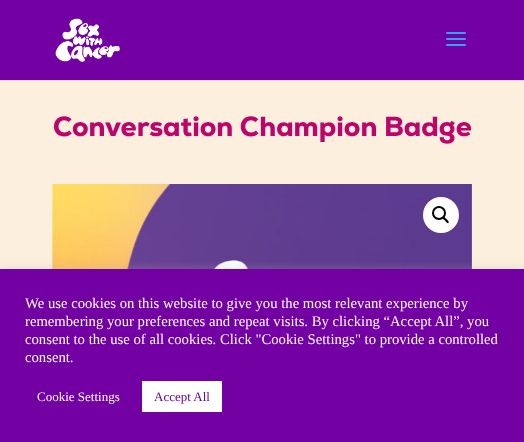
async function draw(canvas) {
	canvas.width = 524;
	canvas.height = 442;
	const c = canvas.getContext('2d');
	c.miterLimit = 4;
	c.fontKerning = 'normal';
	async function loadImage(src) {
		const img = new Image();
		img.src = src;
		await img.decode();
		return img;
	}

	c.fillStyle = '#fcefdd';
	c.fillRect(0, 0, 524, 442);
	c.fillStyle = '#e3d7c7';
	c.fillRect(0, 80, 524, 1);
	c.fillStyle = '#7200a3';
	c.fillRect(0, 0, 524, 80);
	c.drawImage(await loadImage('img1.png'), 55, 18, 65, 44);
	c.drawImage(await loadImage('img2.png'), 446, 32, 20, 14);
	c.font = '900 27.5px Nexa';
	c.fillStyle = '#bc046c';
	c.fillText('Conversation Champion Badge', 53, 136);
	c.drawImage(await loadImage('img3.png'), 52, 184, 420, 85);
	c.fillStyle = '#fff';
	c.beginPath();
	c.arc(441, 215, 18, 0, 2 * Math.PI);
	c.fill();
	c.beginPath();
	c.arc(439, 213, 6, 0, 2 * Math.PI);
	c.strokeStyle = '#000';
	c.lineWidth = 2;
	c.stroke();
	c.fillStyle = '#000';
	c.beginPath();
	c.moveTo(443, 217);
	c.bezierCurveTo(444, 216, 445.5, 218.5, 446.5, 219);
	c.bezierCurveTo(447, 220, 449.5, 221.5, 448.5, 223);
	c.bezierCurveTo(447, 224, 445.5, 221, 445, 220.5);
	c.bezierCurveTo(444.5, 220, 441.5, 218.5, 443, 217);
	c.closePath();
	c.fill();
	c.fillStyle = '#acabab4d';
	c.filter = 'blur(5px)';
	c.beginPath();
	c.rect(0, 268, 524, 173);
	c.fill();
	c.filter = 'none';
	c.fillStyle = '#7200a3';
	c.fillRect(0, 269, 524, 173);
	c.font = '14.7px Liberation Serif';
	c.fillStyle = '#fff';
	for (const [text, x, y] of [
		['We use cookies on this website to give you the most relevant experience by', 25, 308],
		['remembering your preferences and repeat visits. By clicking “Accept All”, you', 25, 326],
		['consent to the use of all cookies. Click "Cookie Settings" to provide a controlled', 25, 344],
		['consent.', 25, 362],
	]) {
		c.fillText(text, x, y);
	}
	c.font = '13px Liberation Serif';
	c.fillText('Cookie Settings', 37, 401);
	c.fillRect(142, 381, 80, 31);
	c.fillStyle = '#7200a3';
	c.fillText('Accept All', 154, 401);
}

draw(document.querySelector('canvas'));
